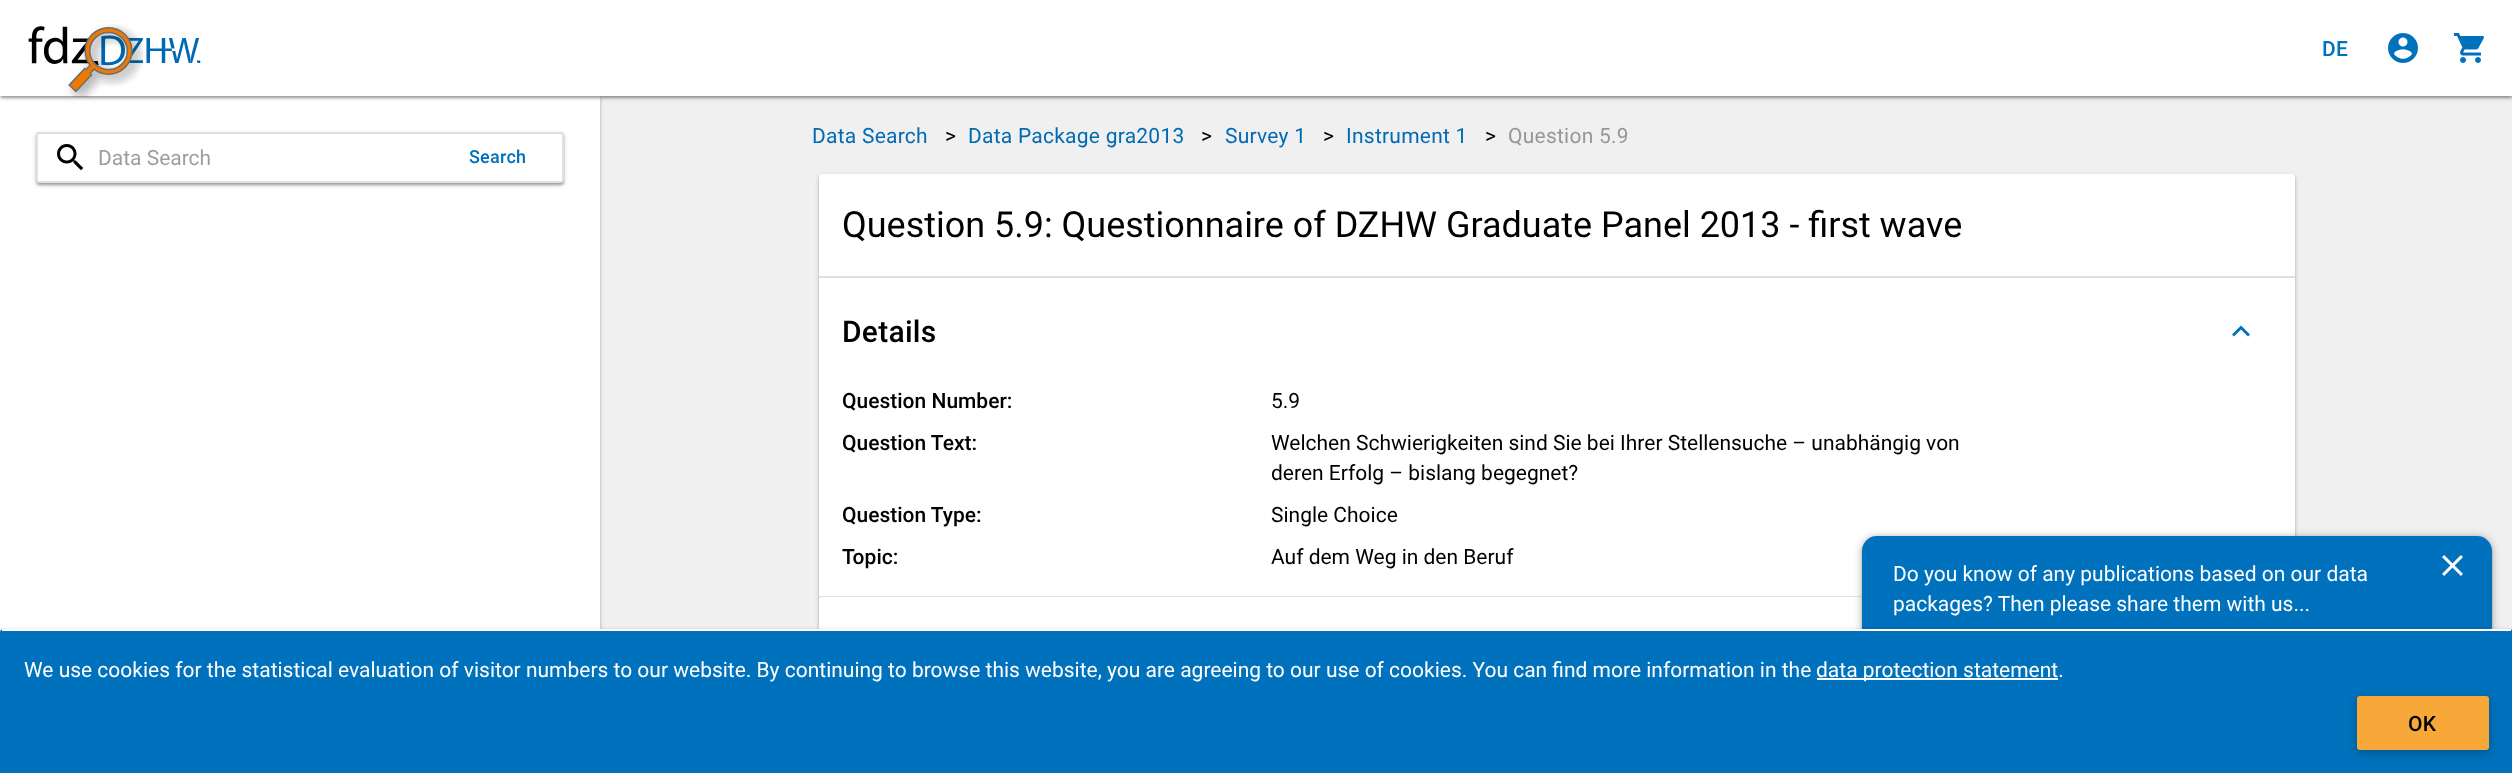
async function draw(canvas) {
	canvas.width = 2512;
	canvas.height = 773;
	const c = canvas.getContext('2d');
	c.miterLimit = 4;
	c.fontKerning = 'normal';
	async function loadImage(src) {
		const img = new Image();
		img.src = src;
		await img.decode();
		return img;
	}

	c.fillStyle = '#f0f0f0';
	c.fillRect(0, 0, 2512, 773);
	c.fillStyle = '#00000024';
	c.filter = 'blur(1px)';
	c.beginPath();
	c.rect(0, 98, 600, 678);
	c.fill();
	c.filter = 'none';
	c.fillStyle = '#00000033';
	c.filter = 'blur(2px)';
	c.beginPath();
	c.rect(0, 98, 600, 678);
	c.fill();
	c.filter = 'none';
	c.fillStyle = '#fff';
	c.fillRect(0, 96, 600, 536);
	c.fillStyle = '#0000001f';
	c.filter = 'blur(1px)';
	c.beginPath();
	c.rect(2, 5, 2509, 93);
	c.fill();
	c.filter = 'none';
	c.fillStyle = '#00000024';
	c.filter = 'blur(1px)';
	c.beginPath();
	c.rect(0, 2, 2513, 96);
	c.fill();
	c.filter = 'none';
	c.fillStyle = '#00000033';
	c.filter = 'blur(2px)';
	c.beginPath();
	c.rect(0, 2, 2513, 96);
	c.fill();
	c.filter = 'none';
	c.fillStyle = '#fff';
	c.fillRect(0, 0, 2512, 96);
	c.drawImage(await loadImage('img1.png'), 28, 24, 173, 74);
	c.letterSpacing = '0.25px';
	c.font = '500 21px Roboto';
	c.fillStyle = '#0071bc';
	c.fillText('DE', 2322, 56);
	c.drawImage(await loadImage('img2.png'), 2388, 33, 30, 30);
	c.drawImage(await loadImage('img3.png'), 2453, 33, 31, 30);
	c.save();
	c.beginPath();
	c.moveTo(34, 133);
	c.lineTo(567, 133);
	c.lineTo(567, 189);
	c.lineTo(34, 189);
	c.closePath();
	c.moveTo(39, 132);
	c.lineTo(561, 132);
	c.bezierCurveTo(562.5, 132, 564, 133.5, 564, 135);
	c.lineTo(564, 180);
	c.bezierCurveTo(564, 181.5, 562.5, 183, 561, 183);
	c.lineTo(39, 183);
	c.bezierCurveTo(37.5, 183, 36, 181.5, 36, 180);
	c.lineTo(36, 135);
	c.bezierCurveTo(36, 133.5, 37.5, 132, 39, 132);
	c.closePath();
	c.clip('evenodd');
	c.fillStyle = '#0000001f';
	c.filter = 'blur(1px)';
	c.beginPath();
	c.roundRect(38, 137, 525, 48, 1.5);
	c.fill();
	c.filter = 'none';
	c.restore();
	c.save();
	c.beginPath();
	c.moveTo(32, 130);
	c.lineTo(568, 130);
	c.lineTo(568, 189);
	c.lineTo(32, 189);
	c.closePath();
	c.moveTo(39, 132);
	c.lineTo(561, 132);
	c.bezierCurveTo(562.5, 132, 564, 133.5, 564, 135);
	c.lineTo(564, 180);
	c.bezierCurveTo(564, 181.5, 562.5, 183, 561, 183);
	c.lineTo(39, 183);
	c.bezierCurveTo(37.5, 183, 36, 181.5, 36, 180);
	c.lineTo(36, 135);
	c.bezierCurveTo(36, 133.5, 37.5, 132, 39, 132);
	c.closePath();
	c.clip('evenodd');
	c.fillStyle = '#00000024';
	c.filter = 'blur(1px)';
	c.beginPath();
	c.roundRect(36, 134, 528, 51, 3);
	c.fill();
	c.filter = 'none';
	c.restore();
	c.save();
	c.beginPath();
	c.moveTo(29, 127);
	c.lineTo(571, 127);
	c.lineTo(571, 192);
	c.lineTo(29, 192);
	c.closePath();
	c.moveTo(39, 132);
	c.lineTo(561, 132);
	c.bezierCurveTo(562.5, 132, 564, 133.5, 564, 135);
	c.lineTo(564, 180);
	c.bezierCurveTo(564, 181.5, 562.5, 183, 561, 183);
	c.lineTo(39, 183);
	c.bezierCurveTo(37.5, 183, 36, 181.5, 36, 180);
	c.lineTo(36, 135);
	c.bezierCurveTo(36, 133.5, 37.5, 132, 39, 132);
	c.closePath();
	c.clip('evenodd');
	c.fillStyle = '#00000033';
	c.filter = 'blur(2px)';
	c.beginPath();
	c.roundRect(36, 134, 528, 51, 3);
	c.fill();
	c.filter = 'none';
	c.restore();
	c.beginPath();
	c.roundRect(37, 133, 526, 49, 2);
	c.strokeStyle = '#0000001f';
	c.lineWidth = 2;
	c.stroke();
	c.drawImage(await loadImage('img4.png'), 57, 144, 27, 27);
	c.letterSpacing = '0px';
	c.font = '21px Roboto';
	c.fillStyle = '#9e9e9e';
	c.fillText('Data Search', 98, 165);
	c.letterSpacing = '0.25px';
	c.font = '500 18px Roboto';
	c.fillStyle = '#0071bc';
	c.fillText('Search', 469, 163);
	c.font = '21px Roboto';
	c.fillStyle = '#006ab2';
	c.fillText('Data Search', 812, 143);
	c.fillStyle = '#000';
	c.fillText('>', 945, 143);
	c.fillStyle = '#006ab2';
	c.fillText('Data Package gra2013', 968, 143);
	c.fillStyle = '#000';
	c.fillText('>', 1201, 143);
	c.fillStyle = '#006ab2';
	c.fillText('Survey 1', 1225, 143);
	c.fillStyle = '#000';
	c.fillText('>', 1323, 143);
	c.fillStyle = '#006ab2';
	c.fillText('Instrument 1', 1346, 143);
	c.fillStyle = '#000';
	c.fillText('>', 1485, 143);
	c.fillStyle = '#979797';
	c.fillText('Question 5.9', 1508, 143);
	c.fillStyle = '#00000024';
	c.filter = 'blur(1px)';
	c.beginPath();
	c.roundRect(819, 176, 1476, 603, 3);
	c.fill();
	c.filter = 'none';
	c.fillStyle = '#00000033';
	c.filter = 'blur(2px)';
	c.beginPath();
	c.roundRect(819, 176, 1476, 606, 3);
	c.fill();
	c.filter = 'none';
	c.fillStyle = '#fff';
	c.beginPath();
	c.moveTo(822, 174);
	c.lineTo(2292, 174);
	c.bezierCurveTo(2293.5, 174, 2295, 175.5, 2295, 177);
	c.lineTo(2295, 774);
	c.lineTo(819, 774);
	c.lineTo(819, 177);
	c.bezierCurveTo(819, 175.5, 820.5, 174, 822, 174);
	c.closePath();
	c.fill();
	c.letterSpacing = '0px';
	c.font = '36px Roboto';
	c.fillStyle = '#000';
	c.fillText('Question 5.9: Questionnaire of DZHW Graduate Panel 2013 - first wave', 842, 237);
	c.fillStyle = '#e0e0e0';
	c.fillRect(819, 276, 1476, 2);
	c.letterSpacing = '0.25px';
	c.font = '500 30px Roboto';
	c.fillStyle = '#000';
	c.fillText('Details', 842, 342);
	c.fillStyle = '#0071bc';
	c.beginPath();
	c.moveTo(2234, 336.5);
	c.lineTo(2232, 334.5);
	c.lineTo(2241, 325.5);
	c.lineTo(2250, 334.5);
	c.lineTo(2248, 336.5);
	c.lineTo(2241, 329.5);
	c.closePath();
	c.fill();
	c.letterSpacing = '0px';
	c.font = '500 21px Roboto';
	c.fillStyle = '#000';
	c.fillText('Question Number:', 842, 408);
	c.font = '21px Roboto';
	c.fillText('5.9', 1271, 408);
	c.font = '500 21px Roboto';
	c.fillText('Question Text:', 842, 450);
	c.font = '21px Roboto';
	c.fillText('Welchen Schwierigkeiten sind Sie bei Ihrer Stellensuche – unabhängig von', 1271, 450);
	c.fillText('deren Erfolg – bislang begegnet?', 1271, 480);
	c.font = '500 21px Roboto';
	c.fillText('Question Type:', 842, 522);
	c.font = '21px Roboto';
	c.fillText('Single Choice', 1271, 522);
	c.font = '500 21px Roboto';
	c.fillText('Topic:', 842, 564);
	c.font = '21px Roboto';
	c.fillText('Auf dem Weg in den Beruf', 1271, 564);
	c.fillStyle = '#e0e0e0';
	c.fillRect(819, 596, 1043, 2);
	c.fillStyle = '#fff';
	c.beginPath();
	c.moveTo(822, 597);
	c.lineTo(2292, 597);
	c.bezierCurveTo(2293.5, 597, 2295, 598.5, 2295, 600);
	c.lineTo(2295, 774);
	c.lineTo(819, 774);
	c.lineTo(819, 600);
	c.bezierCurveTo(819, 598.5, 820.5, 597, 822, 597);
	c.closePath();
	c.fill();
	c.fillStyle = '#00000033';
	c.filter = 'blur(1px)';
	c.beginPath();
	c.roundRect(1862, 537, 630, 107, 15);
	c.fill();
	c.filter = 'none';
	c.fillStyle = '#0000004d';
	c.filter = 'blur(4px)';
	c.beginPath();
	c.roundRect(1862, 537, 630, 107, 15);
	c.fill();
	c.filter = 'none';
	c.fillStyle = '#0071bc';
	c.beginPath();
	c.roundRect(1862, 536, 630, 106, 15);
	c.fill();
	c.fillStyle = '#fff';
	c.fillText('Do you know of any publications based on our data', 1893, 581);
	c.fillText('packages? Then please share them with us...', 1893, 611);
	c.drawImage(await loadImage('img5.png'), 2442, 555, 21, 21);
	c.fillStyle = '#00000033';
	c.filter = 'blur(2px)';
	c.beginPath();
	c.roundRect(0, 630, 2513, 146, 3);
	c.fill();
	c.filter = 'none';
	c.fillStyle = '#0071bc';
	c.beginPath();
	c.moveTo(3, 629);
	c.lineTo(2510, 629);
	c.bezierCurveTo(2511.5, 629, 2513, 630.5, 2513, 632);
	c.lineTo(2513, 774);
	c.lineTo(0, 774);
	c.lineTo(0, 632);
	c.bezierCurveTo(0, 630.5, 1.5, 629, 3, 629);
	c.closePath();
	c.fill();
	c.fillStyle = '#fff';
	c.fillRect(2, 629, 2509, 2);
	c.fillText('We use cookies for the statistical evaluation of visitor numbers to our website. By continuing to browse this website, you are agreeing to our use of cookies. You can find more information in the', 24, 677);
	c.fillRect(1817, 678, 241, 2);
	c.fillText('data protection statement.', 1816, 677);
	c.fillStyle = '#00000042';
	c.filter = 'blur(4px)';
	c.beginPath();
	c.roundRect(2357, 699, 132, 54, 3);
	c.fill();
	c.filter = 'none';
	c.fillStyle = '#f7a839';
	c.beginPath();
	c.roundRect(2357, 696, 132, 54, 3);
	c.fill();
	c.letterSpacing = '0.25px';
	c.font = '500 21px Roboto';
	c.fillStyle = '#000';
	c.fillText('OK', 2408, 731);
}

draw(document.querySelector('canvas'));
